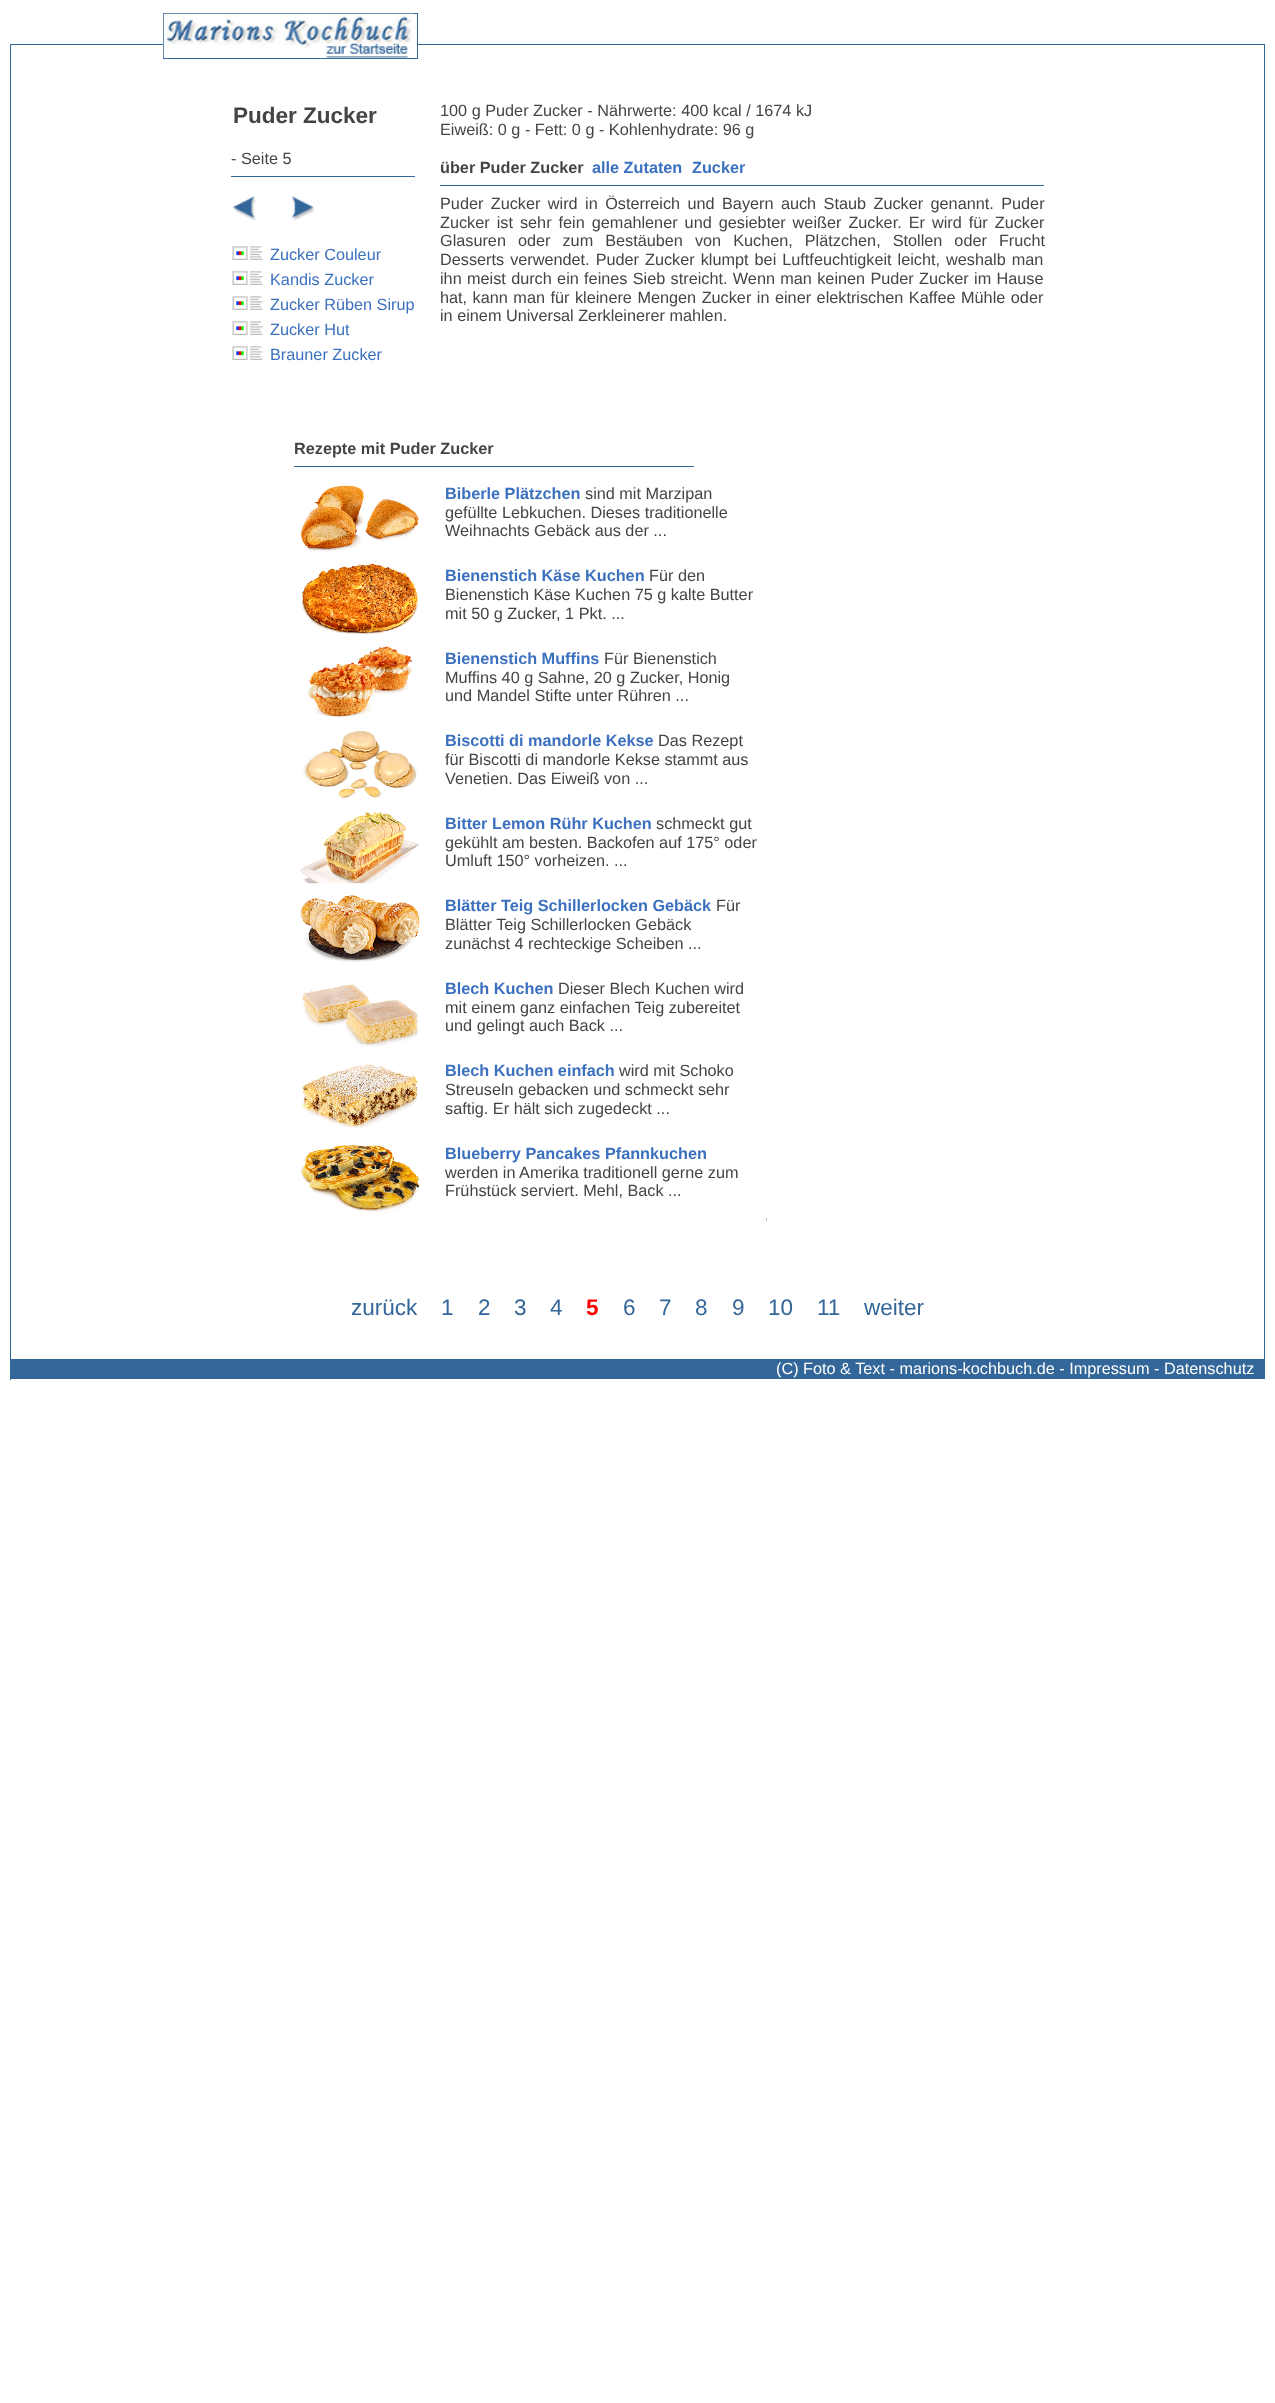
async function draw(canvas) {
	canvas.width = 1275;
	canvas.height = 2403;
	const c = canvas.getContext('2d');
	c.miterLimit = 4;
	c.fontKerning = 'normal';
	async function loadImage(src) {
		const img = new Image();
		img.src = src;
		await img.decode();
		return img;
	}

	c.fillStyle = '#fff';
	c.fillRect(0, 0, 1275, 2403);
	c.fillStyle = '#369';
	c.fillRect(10, 44, 1255, 1);
	c.fillStyle = '#fff';
	c.fillRect(164, 44, 253, 1);
	c.strokeStyle = '#369';
	c.strokeRect(163.5, 13.5, 254, 45);
	c.drawImage(await loadImage('img1.png'), 163, 13, 251, 45);
	for (const [x, y, w, h, color] of [
		[1264, 44, 1, 1336, '#369'],
		[1264, 1379, 1, 1, '#fff'],
		[10, 44, 1, 1336, '#369'],
	]) {
		c.fillStyle = color;
		c.fillRect(x, y, w, h);
	}
	c.font = 'bold 22.5px Liberation Sans';
	c.fillStyle = '#444';
	c.fillText('Puder Zucker', 233, 123);
	c.font = '16.25px Liberation Sans';
	c.fillText('- Seite 5', 231, 164);
	c.fillStyle = '#369';
	c.fillRect(231, 176, 184, 1);
	c.drawImage(await loadImage('img2.png'), 232, 196, 24, 24);
	c.drawImage(await loadImage('img3.png'), 291, 196, 24, 24);
	c.drawImage(await loadImage('img4.png'), 232, 246, 31, 14);
	c.fillStyle = '#3b70bf';
	c.fillText('Zucker Couleur', 270, 260);
	c.drawImage(await loadImage('img4.png'), 232, 271, 31, 14);
	c.fillText('Kandis Zucker', 270, 285);
	c.drawImage(await loadImage('img5.png'), 232, 296, 31, 14);
	c.fillText('Zucker Rüben Sirup', 270, 310);
	c.drawImage(await loadImage('img4.png'), 232, 321, 31, 14);
	c.fillText('Zucker Hut', 270, 335);
	c.drawImage(await loadImage('img4.png'), 232, 346, 31, 14);
	c.fillText('Brauner Zucker', 270, 360);
	c.fillStyle = '#444';
	c.fillText('100 g Puder Zucker - Nährwerte: 400 kcal / 1674 kJ', 440, 116);
	c.fillText('Eiweiß: 0 g - Fett: 0 g - Kohlenhydrate: 96 g', 440, 135);
	c.font = 'bold 16.25px Liberation Sans';
	c.fillText('über Puder Zucker', 440, 173);
	c.fillStyle = '#3b70bf';
	c.fillText('alle Zutaten', 592, 173);
	c.fillText('Zucker', 692, 173);
	c.fillStyle = '#369';
	c.fillRect(440, 185, 604, 1);
	c.wordSpacing = '2.9px';
	c.font = '16.25px Liberation Sans';
	c.fillStyle = '#444';
	c.fillText('Puder Zucker wird in Österreich und Bayern auch Staub Zucker genannt. Puder', 440, 209);
	c.wordSpacing = '2.5px';
	c.fillText('Zucker ist sehr fein gemahlener und gesiebter weißer Zucker. Er wird für Zucker', 440, 228);
	c.wordSpacing = '7.5px';
	c.fillText('Glasuren oder zum Bestäuben von Kuchen, Plätzchen, Stollen oder Frucht', 440, 246);
	c.wordSpacing = '1.5px';
	c.fillText('Desserts verwendet. Puder Zucker klumpt bei Luftfeuchtigkeit leicht, weshalb man', 440, 265);
	c.wordSpacing = '0.8px';
	c.fillText('ihn meist durch ein feines Sieb streicht. Wenn man keinen Puder Zucker im Hause', 440, 284);
	c.wordSpacing = '1px';
	c.fillText('hat, kann man für kleinere Mengen Zucker in einer elektrischen Kaffee Mühle oder', 440, 303);
	c.wordSpacing = '0px';
	c.fillText('in einem Universal Zerkleinerer mahlen.', 440, 321);
	c.font = 'bold 16.25px Liberation Sans';
	c.fillText('Rezepte mit Puder Zucker', 294, 454);
	c.fillStyle = '#369';
	c.fillRect(294, 466, 400, 1);
	c.drawImage(await loadImage('img6.png'), 301, 485, 118, 67);
	c.fillStyle = '#3b70bf';
	c.fillText('Biberle Plätzchen', 445, 499);
	c.font = '16.25px Liberation Sans';
	c.fillStyle = '#444';
	for (const [text, x, y] of [
		['sind mit Marzipan', 585, 499],
		['gefüllte Lebkuchen. Dieses traditionelle', 445, 518],
		['Weihnachts Gebäck aus der ...', 445, 536],
	]) {
		c.fillText(text, x, y);
	}
	c.drawImage(await loadImage('img7.png'), 301, 563, 117, 72);
	c.font = 'bold 16.25px Liberation Sans';
	c.fillStyle = '#3b70bf';
	c.fillText('Bienenstich Käse Kuchen', 445, 581);
	c.font = '16.25px Liberation Sans';
	c.fillStyle = '#444';
	for (const [text, x, y] of [
		['Für den', 649, 581],
		['Bienenstich Käse Kuchen 75 g kalte Butter', 445, 600],
		['mit 50 g Zucker, 1 Pkt. ...', 445, 619],
	]) {
		c.fillText(text, x, y);
	}
	c.drawImage(await loadImage('img8.png'), 308, 646, 105, 71);
	c.font = 'bold 16.25px Liberation Sans';
	c.fillStyle = '#3b70bf';
	c.fillText('Bienenstich Muffins', 445, 664);
	c.font = '16.25px Liberation Sans';
	c.fillStyle = '#444';
	for (const [text, x, y] of [
		['Für Bienenstich', 604, 664],
		['Muffins 40 g Sahne, 20 g Zucker, Honig', 445, 683],
		['und Mandel Stifte unter Rühren ...', 445, 701],
	]) {
		c.fillText(text, x, y);
	}
	c.drawImage(await loadImage('img9.png'), 303, 731, 114, 67);
	c.font = 'bold 16.25px Liberation Sans';
	c.fillStyle = '#3b70bf';
	c.fillText('Biscotti di mandorle Kekse', 445, 746);
	c.font = '16.25px Liberation Sans';
	c.fillStyle = '#444';
	for (const [text, x, y] of [
		['Das Rezept', 658, 746],
		['für Biscotti di mandorle Kekse stammt aus', 445, 765],
		['Venetien. Das Eiweiß von ...', 445, 784],
	]) {
		c.fillText(text, x, y);
	}
	c.drawImage(await loadImage('img10.png'), 300, 812, 120, 72);
	c.font = 'bold 16.25px Liberation Sans';
	c.fillStyle = '#3b70bf';
	c.fillText('Bitter Lemon Rühr Kuchen', 445, 829);
	c.font = '16.25px Liberation Sans';
	c.fillStyle = '#444';
	for (const [text, x, y] of [
		['schmeckt gut', 656, 829],
		['gekühlt am besten. Backofen auf 175° oder', 445, 848],
		['Umluft 150° vorheizen. ...', 445, 866],
	]) {
		c.fillText(text, x, y);
	}
	c.drawImage(await loadImage('img11.png'), 300, 895, 120, 68);
	c.font = 'bold 16.25px Liberation Sans';
	c.fillStyle = '#3b70bf';
	c.fillText('Blätter Teig Schillerlocken Gebäck', 445, 911);
	c.font = '16.25px Liberation Sans';
	c.fillStyle = '#444';
	for (const [text, x, y] of [
		['Für', 716, 911],
		['Blätter Teig Schillerlocken Gebäck', 445, 930],
		['zunächst 4 rechteckige Scheiben ...', 445, 949],
	]) {
		c.fillText(text, x, y);
	}
	c.drawImage(await loadImage('img12.png'), 302, 984, 117, 63);
	c.font = 'bold 16.25px Liberation Sans';
	c.fillStyle = '#3b70bf';
	c.fillText('Blech Kuchen', 445, 994);
	c.font = '16.25px Liberation Sans';
	c.fillStyle = '#444';
	for (const [text, x, y] of [
		['Dieser Blech Kuchen wird', 558, 994],
		['mit einem ganz einfachen Teig zubereitet', 445, 1013],
		['und gelingt auch Back ...', 445, 1031],
	]) {
		c.fillText(text, x, y);
	}
	c.drawImage(await loadImage('img13.png'), 302, 1063, 116, 66);
	c.font = 'bold 16.25px Liberation Sans';
	c.fillStyle = '#3b70bf';
	c.fillText('Blech Kuchen einfach', 445, 1076);
	c.font = '16.25px Liberation Sans';
	c.fillStyle = '#444';
	for (const [text, x, y] of [
		['wird mit Schoko', 619, 1076],
		['Streuseln gebacken und schmeckt sehr', 445, 1095],
		['saftig. Er hält sich zugedeckt ...', 445, 1114],
	]) {
		c.fillText(text, x, y);
	}
	c.drawImage(await loadImage('img14.png'), 301, 1144, 119, 69);
	c.font = 'bold 16.25px Liberation Sans';
	c.fillStyle = '#3b70bf';
	c.fillText('Blueberry Pancakes Pfannkuchen', 445, 1159);
	c.font = '16.25px Liberation Sans';
	c.fillStyle = '#444';
	c.fillText('werden in Amerika traditionell gerne zum', 445, 1178);
	c.fillText('Frühstück serviert. Mehl, Back ...', 445, 1196);
	c.fillStyle = '#c1c1c1';
	c.fillRect(766, 1218, 1, 3);
	c.font = '22.5px Liberation Sans';
	c.fillStyle = '#369';
	for (const [text, x, y] of [
		['zurück', 351, 1315],
		['1', 441, 1315],
		['2', 478, 1315],
		['3', 514, 1315],
		['4', 550, 1315],
	]) {
		c.fillText(text, x, y);
	}
	c.font = 'bold 22.5px Liberation Sans';
	c.fillStyle = '#f00';
	c.fillText('5', 586, 1315);
	c.font = '22.5px Liberation Sans';
	c.fillStyle = '#369';
	for (const [text, x, y] of [
		['6', 623, 1315],
		['7', 659, 1315],
		['8', 695, 1315],
		['9', 732, 1315],
		['10', 768, 1315],
		['11', 817, 1315],
		['weiter', 864, 1315],
	]) {
		c.fillText(text, x, y);
	}
	c.fillRect(11, 1359, 1253, 20);
	c.font = '16.25px Liberation Sans';
	c.fillStyle = '#fff';
	c.fillText('(C) Foto & Text - marions-kochbuch.de - Impressum - Datenschutz', 776, 1374);
}

draw(document.querySelector('canvas'));
